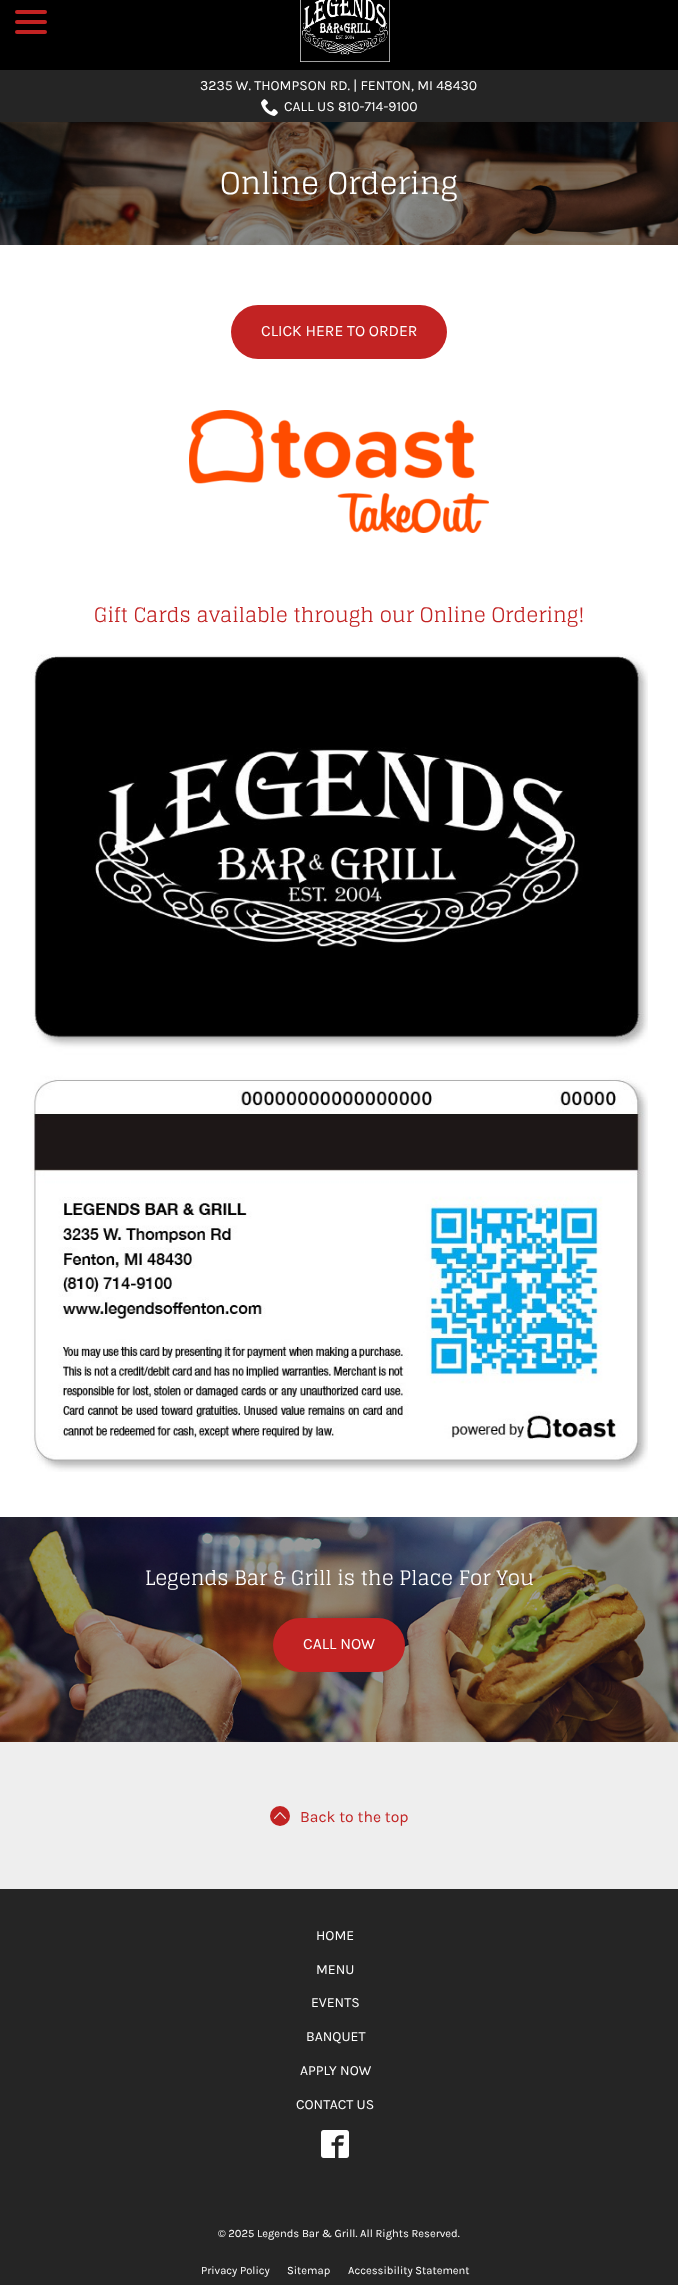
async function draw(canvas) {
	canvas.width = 678;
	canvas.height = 2285;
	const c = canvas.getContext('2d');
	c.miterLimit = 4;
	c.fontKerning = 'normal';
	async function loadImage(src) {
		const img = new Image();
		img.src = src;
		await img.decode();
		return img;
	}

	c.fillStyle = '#fff';
	c.fillRect(0, 0, 678, 2285);
	c.fillStyle = '#000';
	c.fillRect(0, 0, 678, 70);
	c.fillStyle = '#c22323';
	c.beginPath();
	c.roundRect(15, 20, 32, 4, 2);
	c.fill();
	c.beginPath();
	c.roundRect(15, 10, 32, 4, 2);
	c.fill();
	c.beginPath();
	c.roundRect(15, 30, 32, 4, 2);
	c.fill();
	c.drawImage(await loadImage('img1.png'), 300, 0, 90, 62);
	c.fillStyle = '#252525';
	c.fillRect(0, 70, 678, 52);
	c.font = '14px Karla';
	c.fillStyle = '#fff';
	c.fillText('3235 W. THOMPSON RD. | FENTON, MI 48430', 200, 90);
	c.drawImage(await loadImage('img2.png'), 261, 99, 17, 17);
	c.fillText('CALL US 810-714-9100', 284, 111);
	c.drawImage(await loadImage('img3.png'), 0, 122, 678, 123);
	c.font = '30px Glegoo';
	c.fillText('Online Ordering', 220, 194);
	c.fillStyle = '#c22323';
	c.beginPath();
	c.roundRect(231, 305, 216, 54, 27);
	c.fill();
	c.font = '15.75px Karla';
	c.fillStyle = '#fff';
	c.fillText('CLICK HERE TO ORDER', 261, 336);
	c.drawImage(await loadImage('img4.png'), 189, 410, 300, 123);
	c.font = '20px Glegoo';
	c.fillStyle = '#c22323';
	c.fillText('Gift Cards available through our Online Ordering!', 94, 622);
	c.drawImage(await loadImage('img5.png'), 30, 654, 618, 818);
	c.drawImage(await loadImage('img6.png'), 0, 1517, 678, 225);
	c.fillStyle = '#fff';
	c.fillText('Legends Bar & Grill is the Place For You', 145, 1585);
	c.fillStyle = '#c22323';
	c.beginPath();
	c.roundRect(273, 1618, 132, 54, 27);
	c.fill();
	c.font = '15.75px Karla';
	c.fillStyle = '#fff';
	c.fillText('CALL NOW', 303, 1649);
	c.fillStyle = '#eee';
	c.fillRect(0, 1742, 678, 147);
	c.fillStyle = '#c22323';
	c.beginPath();
	c.arc(280, 1816, 10, 0, 2 * Math.PI);
	c.fill();
	c.drawImage(await loadImage('img7.png'), 274, 1812, 12, 7);
	c.fillText('Back to the top', 300, 1822);
	c.fillStyle = '#252525';
	c.fillRect(0, 1889, 678, 396);
	c.font = '14px Karla';
	c.fillStyle = '#fff';
	for (const [text, x, y] of [
		['HOME', 316, 1940],
		['MENU', 316, 1974],
		['EVENTS', 311, 2007],
		['BANQUET', 306, 2041],
		['APPLY NOW', 300, 2075],
		['CONTACT US', 296, 2109],
	]) {
		c.fillText(text, x, y);
	}
	c.drawImage(await loadImage('img8.png'), 321, 2130, 28, 28);
	c.font = '11.2px Karla';
	for (const [text, x, y] of [
		['© 2025 Legends Bar & Grill. All Rights Reserved.', 218, 2237],
		['Privacy Policy', 201, 2274],
		['Sitemap', 287, 2274],
		['Accessibility Statement', 348, 2274],
	]) {
		c.fillText(text, x, y);
	}
}

draw(document.querySelector('canvas'));
